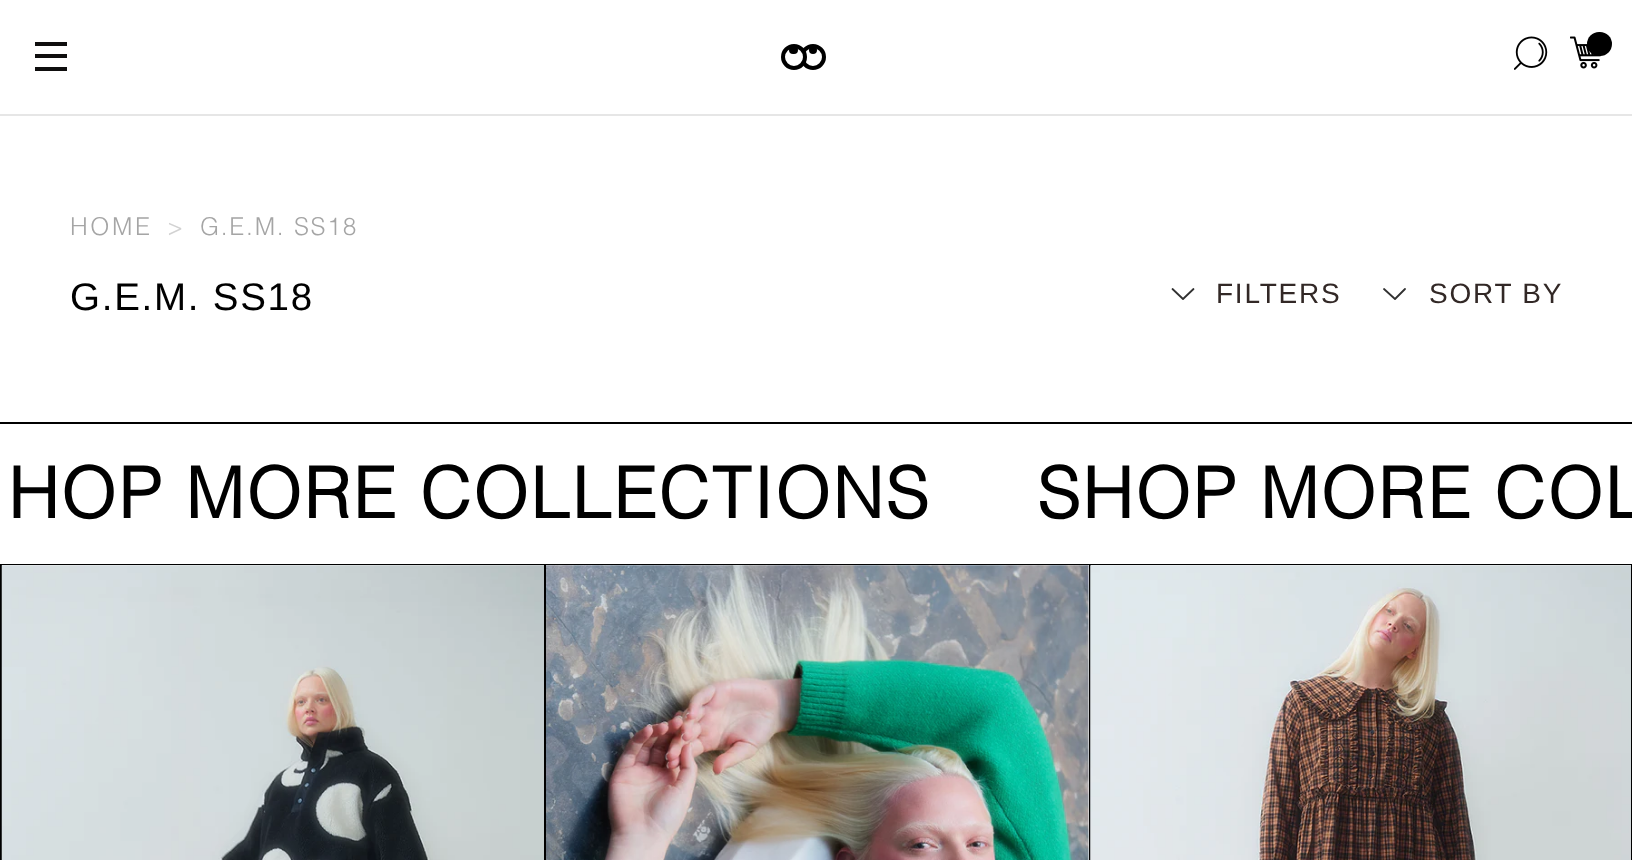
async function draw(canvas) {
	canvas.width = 1632;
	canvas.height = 860;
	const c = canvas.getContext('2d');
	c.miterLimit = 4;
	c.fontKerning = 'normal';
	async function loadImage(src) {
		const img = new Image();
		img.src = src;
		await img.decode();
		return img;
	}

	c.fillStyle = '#fff';
	c.fillRect(0, 0, 1632, 860);
	for (const [x, y, w, h, color] of [
		[0, 114, 1632, 2, '#e6e6e6'],
		[35, 42, 32, 4, '#0f0e0e'],
		[35, 54, 32, 4, '#0f0e0e'],
		[35, 67, 32, 4, '#0f0e0e'],
	]) {
		c.fillStyle = color;
		c.fillRect(x, y, w, h);
	}
	c.beginPath();
	c.arc(813, 57, 11, 0, 2 * Math.PI);
	c.strokeStyle = '#000';
	c.lineWidth = 4;
	c.stroke();
	c.fillStyle = '#fff';
	c.beginPath();
	c.arc(794, 57, 11, 0, 2 * Math.PI);
	c.fill();
	c.stroke();
	c.fillStyle = '#000';
	c.beginPath();
	c.roundRect(789, 46, 9, 8, 4);
	c.fill();
	c.beginPath();
	c.arc(813, 50, 4, 0, 2 * Math.PI);
	c.fill();
	c.drawImage(await loadImage('img1.png'), 1514, 36, 34, 34);
	c.drawImage(await loadImage('img2.png'), 1570, 36, 32, 33);
	c.beginPath();
	c.roundRect(1587, 32, 25, 24, 12);
	c.fill();
	c.letterSpacing = '2.6px';
	c.font = '300 24.5px Helvetica';
	c.fillStyle = '#a5a5a5';
	c.fillText('HOME', 70, 235);
	c.letterSpacing = '1.75px';
	c.fillStyle = '#d2d2d2';
	c.fillText('>', 167, 235);
	c.fillStyle = '#a5a5a5';
	c.fillText('G.E.M. SS18', 200, 235);
	c.font = '38.5px Liberation Sans';
	c.fillStyle = '#000';
	c.fillText('G.E.M. SS18', 70, 310);
	c.beginPath();
	c.moveTo(1172.5, 289);
	c.lineTo(1183, 299);
	c.lineTo(1193.5, 289);
	c.strokeStyle = '#313131';
	c.lineWidth = 1.8;
	c.lineCap = 'round';
	c.lineJoin = 'round';
	c.stroke();
	c.font = '28px Liberation Sans';
	c.fillStyle = '#322826';
	c.fillText('FILTERS', 1216, 303);
	c.beginPath();
	c.moveTo(1384, 289);
	c.lineTo(1395, 299);
	c.lineTo(1405, 289);
	c.stroke();
	c.fillText('SORT BY', 1429, 303);
	c.fillStyle = '#000';
	c.fillRect(0, 422, 1632, 2);
	c.fillRect(0, 564, 1632, 1);
	c.letterSpacing = '2.6px';
	c.font = 'bold 70px Helvetica';
	c.fillText('HOP MORE COLLECTIONS', 8, 518);
	c.fillText('SHOP MORE COL', 1037, 518);
	c.fillRect(0, 565, 2, 295);
	c.drawImage(await loadImage('img3.png'), 1, 565, 543, 295);
	c.fillRect(544, 565, 2, 295);
	c.drawImage(await loadImage('img4.png'), 546, 565, 543, 295);
	c.fillRect(1631, 565, 1, 295);
	c.fillRect(1089, 565, 2, 295);
	c.drawImage(await loadImage('img5.png'), 1090, 565, 541, 295);
}

draw(document.querySelector('canvas'));
